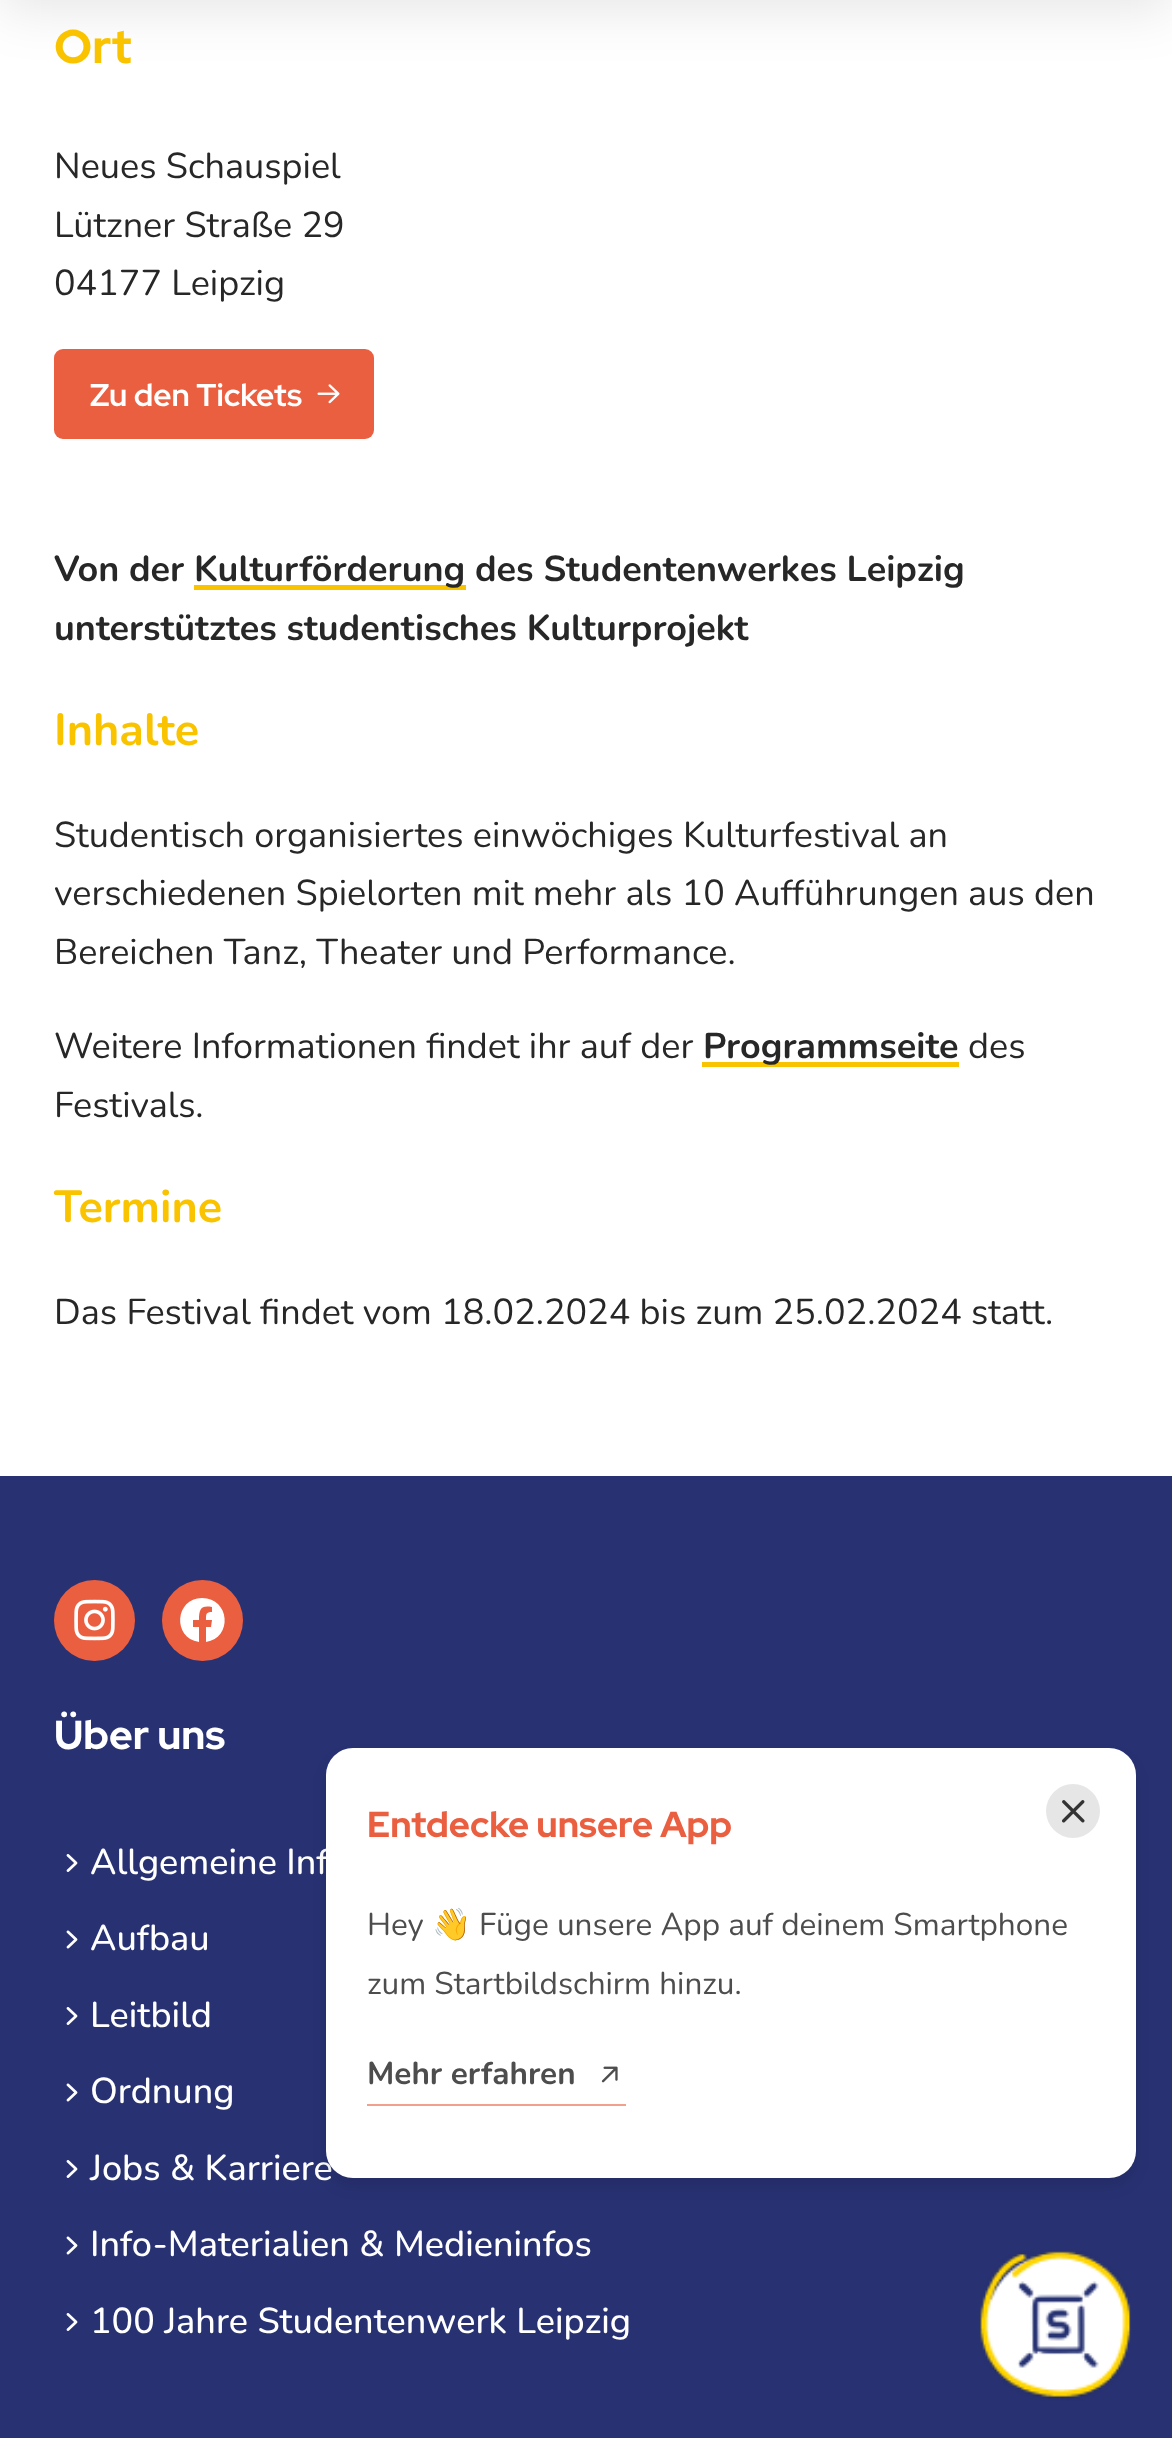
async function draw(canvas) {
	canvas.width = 1172;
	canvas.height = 2438;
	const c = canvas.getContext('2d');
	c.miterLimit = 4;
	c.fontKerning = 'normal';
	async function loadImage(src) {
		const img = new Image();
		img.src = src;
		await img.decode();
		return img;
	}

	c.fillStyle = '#fff';
	c.fillRect(0, 0, 1172, 2438);
	c.fillStyle = '#0000001a';
	c.filter = 'blur(27px)';
	c.beginPath();
	c.rect(0, -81, 1172, 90);
	c.fill();
	c.filter = 'none';
	c.font = 'bold 47px Red Hat Display';
	c.fillStyle = '#fac300';
	c.fillText('Ort', 54, 63);
	c.font = '36px Nunito';
	c.fillStyle = '#272727';
	for (const [text, x, y] of [
		['Neues Schauspiel', 54, 178],
		['Lützner Straße 29', 54, 237],
		['04177 Leipzig', 54, 295],
	]) {
		c.fillText(text, x, y);
	}
	c.fillStyle = '#eb5f41';
	c.beginPath();
	c.roundRect(54, 349, 320, 90, 9);
	c.fill();
	c.font = '600 31.5px Red Hat Display';
	c.fillStyle = '#fff';
	c.fillText('Zu den Tickets', 90, 406);
	c.drawImage(await loadImage('img1.png'), 317, 384, 23, 20);
	c.font = 'bold 36px Nunito';
	c.fillStyle = '#272727';
	c.fillText('Von der', 54, 581);
	c.fillStyle = '#fac300';
	c.fillRect(194, 585, 272, 5);
	c.fillStyle = '#272727';
	for (const [text, x, y] of [
		['Kulturförderung', 194, 581],
		['des Studentenwerkes Leipzig', 475, 581],
		['unterstütztes studentisches Kulturprojekt', 54, 640],
	]) {
		c.fillText(text, x, y);
	}
	c.font = 'bold 45px Nunito';
	c.fillStyle = '#fac300';
	c.fillText('Inhalte', 54, 745);
	c.font = '36px Nunito';
	c.fillStyle = '#272727';
	for (const [text, x, y] of [
		['Studentisch organisiertes einwöchiges Kulturfestival an', 54, 847],
		['verschiedenen Spielorten mit mehr als 10 Aufführungen aus den', 54, 905],
		['Bereichen Tanz, Theater und Performance.', 54, 964],
		['Weitere Informationen findet ihr auf der', 54, 1058],
	]) {
		c.fillText(text, x, y);
	}
	c.fillStyle = '#fac300';
	c.fillRect(702, 1062, 257, 5);
	c.font = 'bold 36px Nunito';
	c.fillStyle = '#272727';
	c.fillText('Programmseite', 703, 1058);
	c.font = '36px Nunito';
	c.fillText('des', 968, 1058);
	c.fillText('Festivals.', 54, 1117);
	c.font = 'bold 45px Nunito';
	c.fillStyle = '#fac300';
	c.fillText('Termine', 54, 1222);
	c.font = '36px Nunito';
	c.fillStyle = '#272727';
	c.fillText('Das Festival findet vom 18.02.2024 bis zum 25.02.2024 statt.', 54, 1324);
	c.fillStyle = '#283273';
	c.fillRect(0, 1476, 1172, 962);
	c.fillStyle = '#eb5f41';
	c.beginPath();
	c.arc(94.5, 1620.5, 40.5, 0, 2 * Math.PI);
	c.fill();
	c.drawImage(await loadImage('img2.png'), 74, 1599, 41, 42);
	c.beginPath();
	c.arc(202.5, 1620.5, 40.5, 0, 2 * Math.PI);
	c.fill();
	c.fillStyle = '#fff';
	c.beginPath();
	c.moveTo(202, 1598);
	c.bezierCurveTo(175, 1598, 172, 1638, 199, 1642);
	c.lineTo(199, 1627);
	c.lineTo(193, 1627);
	c.lineTo(193, 1620);
	c.lineTo(199, 1620);
	c.bezierCurveTo(199, 1609, 201, 1605, 212, 1607);
	c.lineTo(212, 1612);
	c.bezierCurveTo(206, 1612, 206, 1614, 206, 1620);
	c.lineTo(212, 1620);
	c.lineTo(211, 1627);
	c.lineTo(206, 1627);
	c.lineTo(206, 1642);
	c.bezierCurveTo(233, 1638, 230, 1598, 202, 1598);
	c.closePath();
	c.fill();
	c.font = 'bold 40.5px Red Hat Display';
	c.fillText('Über uns', 54, 1749);
	c.drawImage(await loadImage('img3.png'), 66, 1854, 12, 18);
	c.font = '500 36px Nunito';
	c.fillText('Allgemeine Inf', 90, 1874);
	c.drawImage(await loadImage('img4.png'), 66, 1930, 12, 19);
	c.fillText('Aufbau', 90, 1950);
	c.drawImage(await loadImage('img3.png'), 66, 2007, 12, 18);
	c.fillText('Leitbild', 90, 2027);
	c.drawImage(await loadImage('img4.png'), 66, 2083, 12, 19);
	c.fillText('Ordnung', 90, 2103);
	c.drawImage(await loadImage('img3.png'), 66, 2160, 12, 18);
	c.fillText('Jobs & Karriere', 90, 2180);
	c.drawImage(await loadImage('img4.png'), 66, 2236, 12, 19);
	c.fillText('Info-Materialien & Medieninfos', 90, 2256);
	c.drawImage(await loadImage('img3.png'), 66, 2313, 12, 18);
	c.fillText('100 Jahre Studentenwerk Leipzig', 90, 2333);
	c.fillStyle = '#0000001a';
	c.filter = 'blur(7px)';
	c.beginPath();
	c.roundRect(326, 1757, 810, 430, 27);
	c.fill();
	c.filter = 'none';
	c.fillStyle = '#fff';
	c.beginPath();
	c.roundRect(326, 1748, 810, 430, 27);
	c.fill();
	c.font = 'bold 36px Red Hat Display';
	c.fillStyle = '#eb5f41';
	c.fillText('Entdecke unsere App', 367, 1837);
	c.fillStyle = '#e6e6e6';
	c.beginPath();
	c.arc(1073, 1811, 27, 0, 2 * Math.PI);
	c.fill();
	c.drawImage(await loadImage('img5.png'), 1062, 1800, 23, 23);
	c.font = '31.5px Nunito';
	c.fillStyle = '#4d4d4d';
	c.fillText('Hey', 367, 1935);
	c.font = '31.5px Noto Color Emoji';
	c.fillText('👋', 432, 1935);
	c.font = '31.5px Nunito';
	c.fillText('Füge unsere App auf deinem Smartphone', 479, 1935);
	c.fillText('zum Startbildschirm hinzu.', 367, 1994);
	c.fillStyle = '#f39f8d';
	c.fillRect(367, 2104, 259, 2);
	c.font = 'bold 31.5px Nunito';
	c.fillStyle = '#4d4d4d';
	c.fillText('Mehr erfahren', 367, 2084);
	c.drawImage(await loadImage('img6.png'), 601, 2066, 17, 17);
	c.drawImage(await loadImage('img7.png'), 980, 2251, 151, 150);
}

draw(document.querySelector('canvas'));
